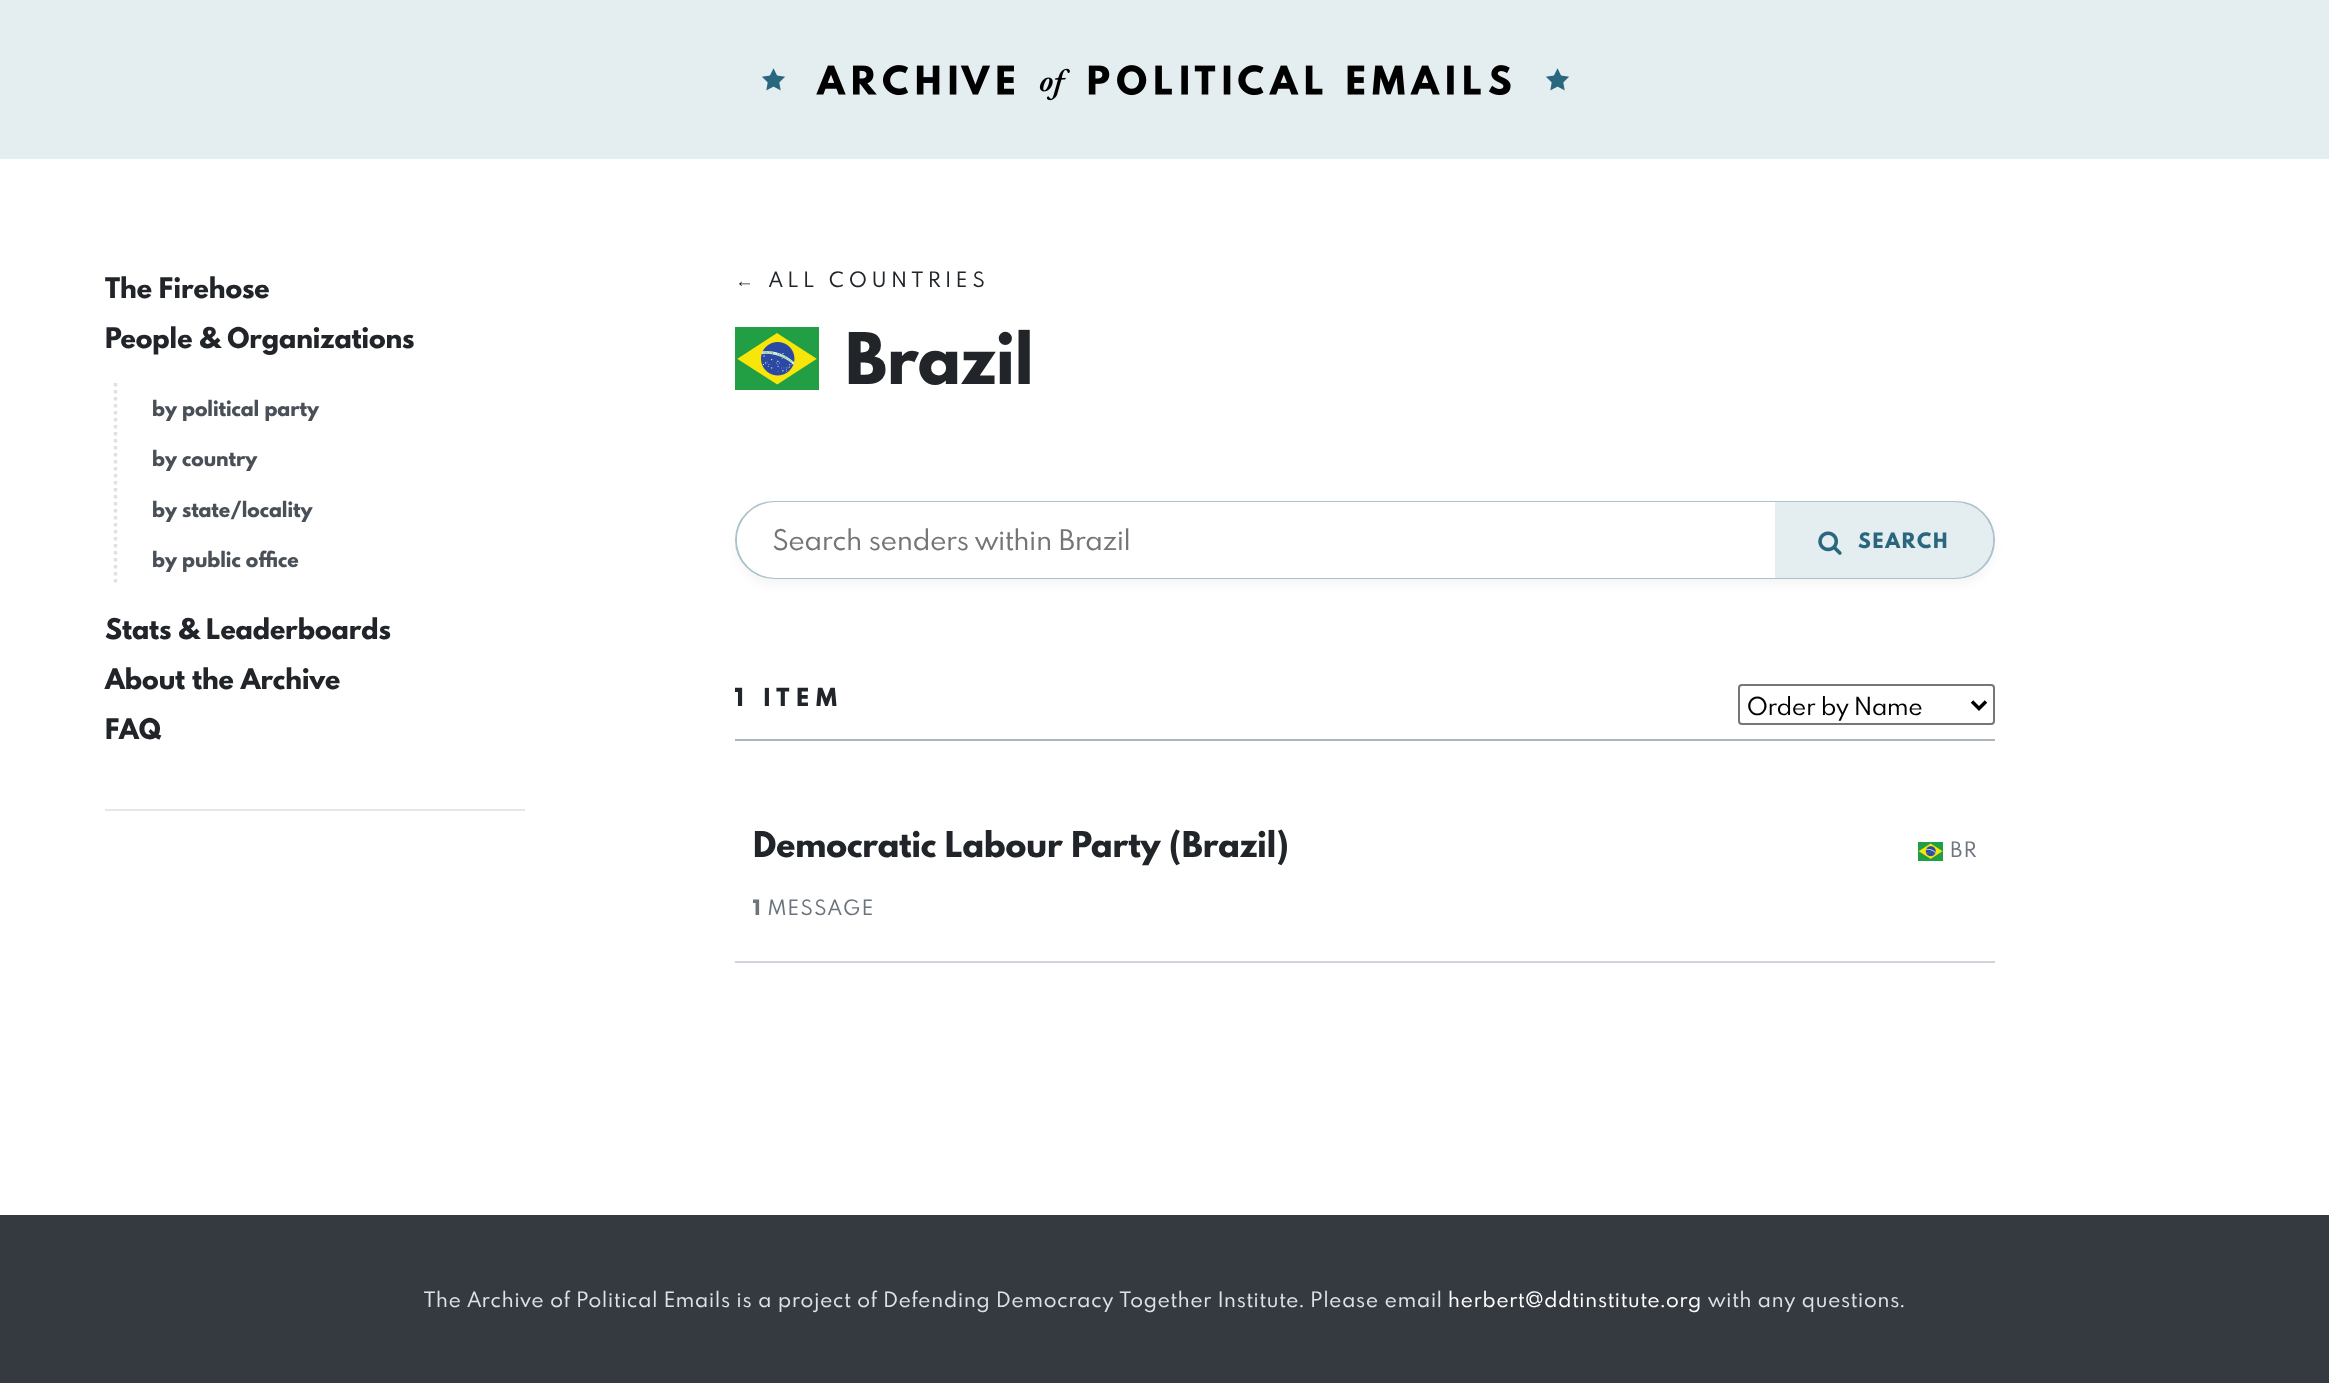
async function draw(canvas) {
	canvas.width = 2329;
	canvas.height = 1383;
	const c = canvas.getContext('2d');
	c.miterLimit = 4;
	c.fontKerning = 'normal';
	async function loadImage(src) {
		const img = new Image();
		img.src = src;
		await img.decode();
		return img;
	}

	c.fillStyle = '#fff';
	c.fillRect(0, 0, 2329, 1383);
	c.fillStyle = '#e4edef';
	c.fillRect(0, 0, 2329, 159);
	c.drawImage(await loadImage('img1.png'), 762, 65, 807, 36);
	c.font = '800 25.25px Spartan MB';
	c.fillStyle = '#212529';
	c.fillText('The Firehose', 105, 298);
	c.fillText('People & Organizations', 105, 348);
	c.beginPath();
	c.moveTo(115.5, 383);
	c.lineTo(115.5, 584.5);
	c.strokeStyle = '#dee2e6';
	c.lineWidth = 3.5;
	c.setLineDash([3.5, 3.5]);
	c.stroke();
	c.font = '800 18.9px Spartan MB';
	c.fillStyle = '#495057';
	for (const [text, x, y] of [
		['by political party', 152, 416],
		['by country', 152, 466],
		['by state/locality', 152, 517],
		['by public office', 152, 567],
	]) {
		c.fillText(text, x, y);
	}
	c.font = '800 25.25px Spartan MB';
	c.fillStyle = '#212529';
	for (const [text, x, y] of [
		['Stats & Leaderboards', 105, 639],
		['About the Archive', 105, 689],
		['FAQ', 105, 739],
	]) {
		c.fillText(text, x, y);
	}
	c.fillStyle = '#e6e6e6';
	c.fillRect(105, 809, 420, 2);
	c.letterSpacing = '5.25px';
	c.font = '18.9px Liberation Sans';
	c.fillStyle = '#212529';
	c.fillText('←', 735, 287);
	c.font = '18.9px Spartan MB';
	c.fillText('ALL COUNTRIES', 769, 287);
	c.drawImage(await loadImage('img2.png'), 735, 327, 84, 63);
	c.letterSpacing = '0px';
	c.font = '800 63px Spartan MB';
	c.fillText('Brazil', 845, 384);
	c.fillStyle = '#0000000a';
	c.filter = 'blur(5px)';
	c.beginPath();
	c.roundRect(735, 506, 1260, 79, 39.5);
	c.fill();
	c.filter = 'none';
	c.beginPath();
	c.roundRect(736, 502, 1258, 76, 38);
	c.strokeStyle = '#aac2cc';
	c.lineWidth = 2;
	c.setLineDash([]);
	c.stroke();
	c.fillStyle = '#fff';
	c.beginPath();
	c.roundRect(737, 502, 1038, 76, [38, 0, 0, 38]);
	c.fill();
	c.font = '25.25px Spartan MB';
	c.fillStyle = '#757575';
	c.fillText('Search senders within Brazil', 772, 550);
	c.fillStyle = '#e4edef';
	c.beginPath();
	c.roundRect(1775, 502, 218, 76, [0, 38, 38, 0]);
	c.fill();
	c.drawImage(await loadImage('img3.png'), 1818, 531, 24, 24);
	c.letterSpacing = '1.75px';
	c.font = '800 18.9px Spartan MB';
	c.fillStyle = '#2a677f';
	c.fillText('SEARCH', 1858, 548);
	c.fillStyle = '#adb5bd';
	c.fillRect(735, 739, 1260, 2);
	c.letterSpacing = '7px';
	c.font = '800 22px Spartan MB';
	c.fillStyle = '#212529';
	c.fillText('1 ITEM', 735, 706);
	c.beginPath();
	c.roundRect(1739, 685, 255, 39, 3);
	c.strokeStyle = '#767676';
	c.stroke();
	c.beginPath();
	c.moveTo(1972, 701.5);
	c.lineTo(1979, 708.5);
	c.lineTo(1986, 701.5);
	c.strokeStyle = '#000';
	c.lineWidth = 3.5;
	c.stroke();
	c.letterSpacing = '0px';
	c.font = '22px Spartan MB';
	c.fillStyle = '#000';
	c.fillText('Order by Name', 1747, 715);
	c.fillStyle = '#ced4da';
	c.fillRect(735, 961, 1260, 2);
	c.font = '800 31.5px Spartan MB';
	c.fillStyle = '#212529';
	c.fillText('Democratic Labour Party (Brazil)', 753, 857);
	c.drawImage(await loadImage('img4.png'), 1918, 842, 25, 19);
	c.letterSpacing = '1.75px';
	c.font = '18.9px Spartan MB';
	c.fillStyle = '#6c757d';
	c.fillText('BR', 1950, 857);
	c.font = '800 18.9px Spartan MB';
	c.fillText('1', 753, 915);
	c.font = '18.9px Spartan MB';
	c.fillText('MESSAGE', 768, 915);
	c.fillStyle = '#343a40';
	c.fillRect(0, 1215, 2329, 168);
	c.letterSpacing = '0.88px';
	c.fillStyle = '#dee2e6';
	c.fillText('The Archive of Political Emails is a project of Defending Democracy Together Institute. Please email', 424, 1307);
	c.fillStyle = '#fff';
	c.fillText('herbert@ddtinstitute.org', 1448, 1307);
	c.fillStyle = '#dee2e6';
	c.fillText('with any questions.', 1708, 1307);
}

draw(document.querySelector('canvas'));
